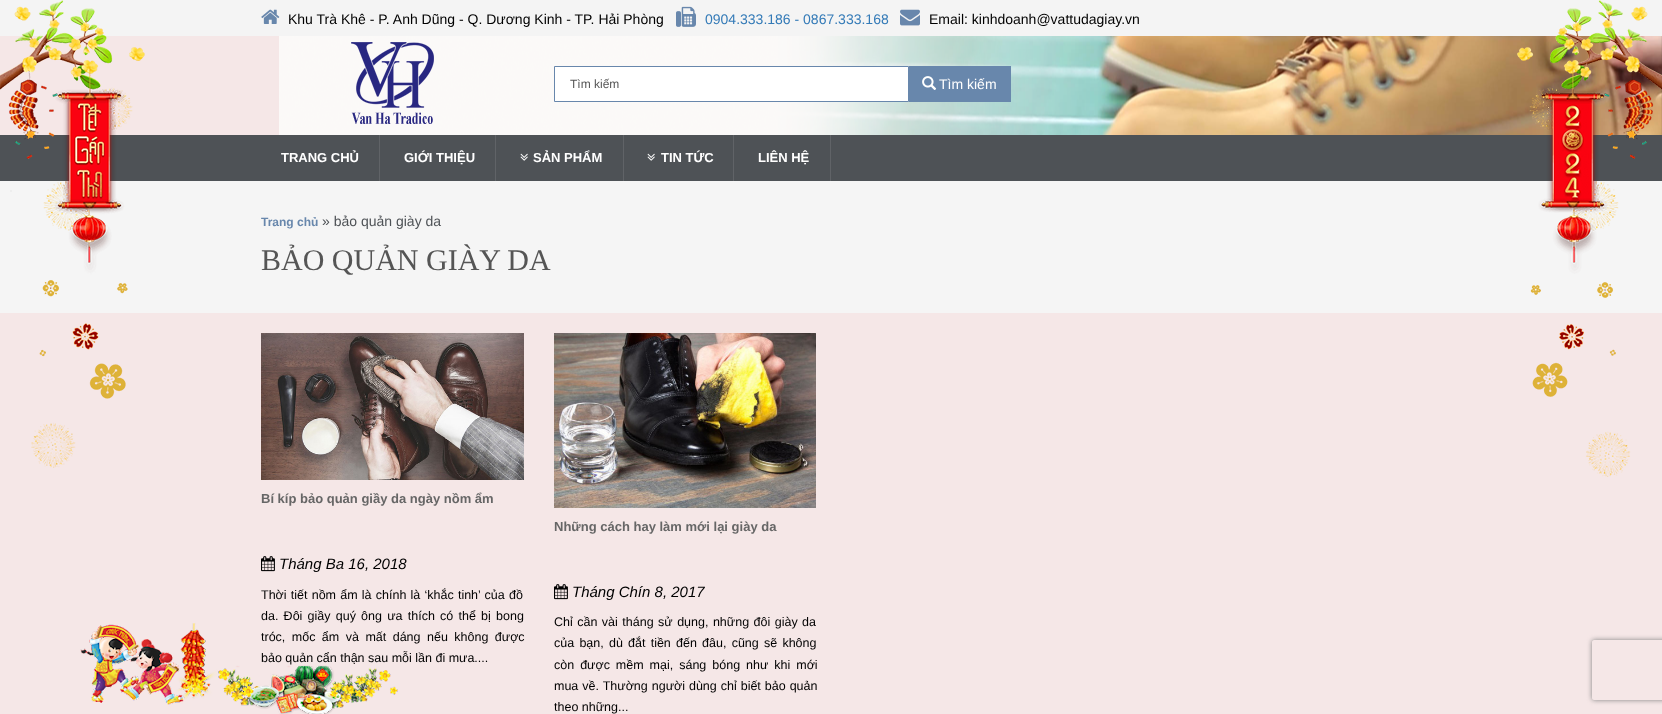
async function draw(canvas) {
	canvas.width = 1662;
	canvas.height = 714;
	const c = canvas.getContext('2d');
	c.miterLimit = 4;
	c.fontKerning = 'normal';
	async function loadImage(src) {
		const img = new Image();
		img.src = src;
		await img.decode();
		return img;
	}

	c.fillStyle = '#f5e7e7';
	c.fillRect(0, 0, 1662, 714);
	for (const [x, y, w, h, color] of [
		[0, 0, 1662, 36, '#f4f4f4'],
		[0, 135, 1662, 46, '#4e5256'],
		[0, 181, 1662, 132, '#f5f5f5'],
		[10, 190, 2, 2, '#eee'],
	]) {
		c.fillStyle = color;
		c.fillRect(x, y, w, h);
	}
	c.drawImage(await loadImage('img1.png'), 0, 0, 145, 468);
	c.drawImage(await loadImage('img2.png'), 279, 36, 1383, 99);
	c.drawImage(await loadImage('img3.png'), 261, 9, 19, 15);
	c.font = '14px Liberation Sans';
	c.fillStyle = '#000';
	c.fillText('Khu Trà Khê - P. Anh Dũng - Q. Dương Kinh - TP. Hải Phòng', 288, 24);
	c.drawImage(await loadImage('img4.png'), 676, 6, 20, 21);
	c.fillStyle = '#337ab7';
	c.fillText('0904.333.186 - 0867.333.168', 705, 24);
	c.drawImage(await loadImage('img5.png'), 900, 9, 20, 17);
	c.fillStyle = '#000';
	c.fillText('Email: kinhdoanh@vattudagiay.vn', 929, 24);
	c.drawImage(await loadImage('img6.png'), 351, 42, 83, 82);
	c.fillStyle = '#fff';
	c.beginPath();
	c.rect(554.5, 66.5, 354, 35);
	c.fill();
	c.strokeStyle = '#6887ac';
	c.stroke();
	c.font = '12px Liberation Sans';
	c.fillStyle = '#555';
	c.fillText('Tìm kiếm', 570, 88);
	c.fillStyle = '#6887ac';
	c.fillRect(909, 66, 102, 36);
	c.drawImage(await loadImage('img7.png'), 922, 76, 15, 14);
	c.font = '14px Liberation Sans';
	c.fillStyle = '#fff';
	c.fillText('Tìm kiếm', 939, 89);
	c.drawImage(await loadImage('img8.png'), 1517, 0, 145, 477);
	c.fillStyle = '#606367';
	c.fillRect(379, 135, 1, 46);
	c.font = 'bold 13px Liberation Sans';
	c.fillStyle = '#fff';
	c.fillText('TRANG CHỦ', 281, 162);
	c.fillStyle = '#606367';
	c.fillRect(495, 135, 1, 46);
	c.fillStyle = '#fff';
	c.fillText('GIỚI THIỆU', 404, 162);
	c.fillStyle = '#606367';
	c.fillRect(623, 135, 1, 46);
	c.drawImage(await loadImage('img9.png'), 520, 153, 8, 8);
	c.fillStyle = '#fff';
	c.fillText('SẢN PHẨM', 533, 162);
	c.fillStyle = '#606367';
	c.fillRect(733, 135, 1, 46);
	c.drawImage(await loadImage('img9.png'), 647, 153, 8, 8);
	c.fillStyle = '#fff';
	c.fillText('TIN TỨC', 661, 162);
	c.fillStyle = '#606367';
	c.fillRect(830, 135, 1, 46);
	c.fillStyle = '#fff';
	c.fillText('LIÊN HỆ', 758, 162);
	c.wordSpacing = '3px';
	c.font = '12.5px Liberation Sans';
	c.fillStyle = '#000';
	c.fillText('tróc, mốc ẩm và mất dáng nếu không được', 261, 641);
	c.wordSpacing = '0px';
	c.fillText('bảo quản cẩn thận sau mỗi lần đi mưa....', 261, 662);
	c.drawImage(await loadImage('img10.png'), 80, 623, 318, 91);
	c.font = 'bold 12px Liberation Sans';
	c.fillStyle = '#6887ac';
	c.fillText('Trang chủ', 261, 226);
	c.font = '14px Liberation Sans';
	c.fillStyle = '#4e5256';
	c.fillText('» bảo quản giày da', 322, 226);
	c.font = '30px Liberation Serif';
	c.fillStyle = '#555';
	c.fillText('BẢO QUẢN GIÀY DA', 261, 270);
	c.drawImage(await loadImage('img11.png'), 261, 333, 263, 147);
	c.font = 'bold 13px Liberation Sans';
	c.fillStyle = '#666';
	c.fillText('Bí kíp bảo quản giầy da ngày nồm ẩm', 261, 503);
	c.drawImage(await loadImage('img12.png'), 261, 556, 14, 16);
	c.font = 'italic 15px Liberation Sans';
	c.fillStyle = '#000';
	c.fillText('Tháng Ba 16, 2018', 279, 569);
	c.wordSpacing = '0.75px';
	c.font = '12.5px Liberation Sans';
	c.fillText('Thời tiết nồm ẩm là chính là ‘khắc tinh’ của đồ', 261, 599);
	c.wordSpacing = '1.75px';
	c.fillText('da. Đôi giầy quý ông ưa thích có thể bị bong', 261, 620);
	c.drawImage(await loadImage('img13.png'), 554, 333, 262, 175);
	c.wordSpacing = '0px';
	c.font = 'bold 13px Liberation Sans';
	c.fillStyle = '#666';
	c.fillText('Những cách hay làm mới lại giày da', 554, 531);
	c.drawImage(await loadImage('img12.png'), 554, 584, 14, 16);
	c.font = 'italic 15px Liberation Sans';
	c.fillStyle = '#000';
	c.fillText('Tháng Chín 8, 2017', 572, 597);
	c.wordSpacing = '1px';
	c.font = '12.5px Liberation Sans';
	c.fillText('Chỉ cần vài tháng sử dụng, những đôi giày da', 554, 626);
	c.wordSpacing = '1.75px';
	c.fillText('của bạn, dù đắt tiền đến đâu, cũng sẽ không', 554, 647);
	c.wordSpacing = '2.5px';
	c.fillText('còn được mềm mại, sáng bóng như khi mới', 554, 669);
	c.wordSpacing = '0.5px';
	c.fillText('mua về. Thường người dùng chỉ biết bảo quản', 554, 690);
	c.wordSpacing = '0px';
	c.fillText('theo những...', 554, 711);
	c.save();
	c.beginPath();
	c.moveTo(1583, 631);
	c.lineTo(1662, 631);
	c.lineTo(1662, 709);
	c.lineTo(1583, 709);
	c.closePath();
	c.moveTo(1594, 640);
	c.lineTo(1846, 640);
	c.bezierCurveTo(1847, 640, 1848, 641, 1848, 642);
	c.lineTo(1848, 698);
	c.bezierCurveTo(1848, 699, 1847, 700, 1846, 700);
	c.lineTo(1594, 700);
	c.bezierCurveTo(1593, 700, 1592, 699, 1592, 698);
	c.lineTo(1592, 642);
	c.bezierCurveTo(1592, 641, 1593, 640, 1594, 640);
	c.closePath();
	c.clip('evenodd');
	c.fillStyle = '#808080';
	c.filter = 'blur(2.5px)';
	c.beginPath();
	c.roundRect(1592, 640, 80, 60, 2);
	c.fill();
	c.filter = 'none';
	c.restore();
}

draw(document.querySelector('canvas'));
